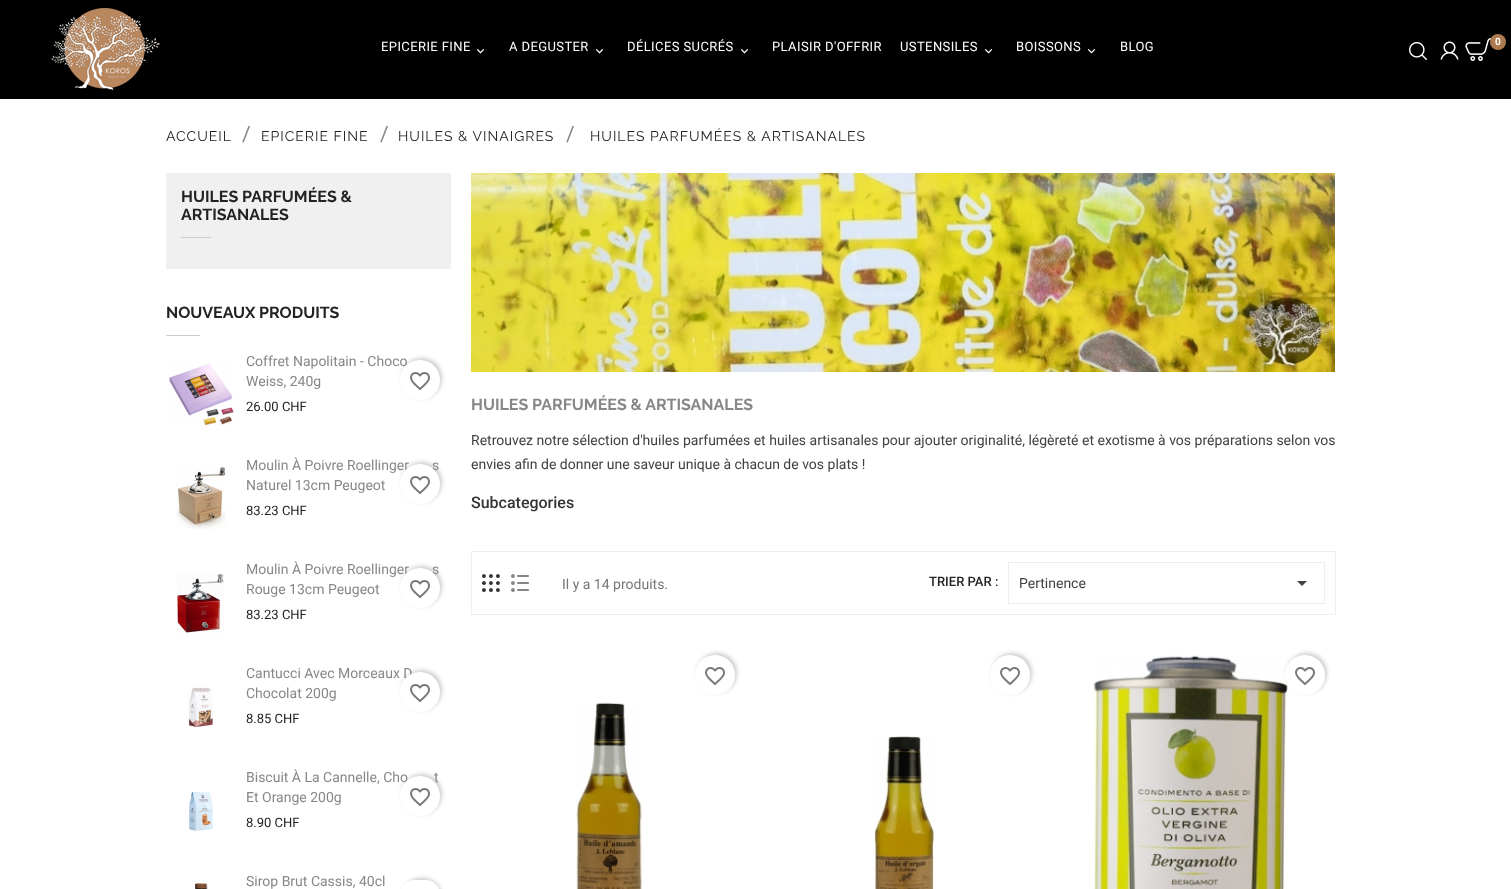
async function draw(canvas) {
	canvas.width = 1511;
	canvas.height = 889;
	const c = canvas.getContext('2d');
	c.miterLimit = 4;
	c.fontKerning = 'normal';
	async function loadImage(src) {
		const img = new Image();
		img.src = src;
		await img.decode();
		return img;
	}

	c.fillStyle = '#fff';
	c.fillRect(0, 0, 1511, 889);
	c.fillStyle = '#000';
	c.fillRect(0, 0, 1511, 99);
	c.drawImage(await loadImage('img1.png'), 51, 7, 109, 84);
	c.letterSpacing = '0.4px';
	c.font = '13px Roboto';
	c.fillStyle = '#fff';
	c.fillText('EPICERIE FINE', 381, 51);
	c.drawImage(await loadImage('img2.png'), 476, 49, 9, 5);
	c.fillText('A DEGUSTER', 509, 51);
	c.drawImage(await loadImage('img2.png'), 595, 49, 9, 5);
	c.fillText('DÉLICES SUCRÉS', 627, 51);
	c.drawImage(await loadImage('img2.png'), 740, 49, 9, 5);
	c.fillText('PLAISIR D\'OFFRIR', 772, 51);
	c.fillText('USTENSILES', 900, 51);
	c.drawImage(await loadImage('img2.png'), 984, 49, 9, 5);
	c.fillText('BOISSONS', 1016, 51);
	c.drawImage(await loadImage('img2.png'), 1087, 49, 9, 5);
	c.fillText('BLOG', 1120, 51);
	c.drawImage(await loadImage('img3.png'), 1409, 42, 18, 18);
	c.drawImage(await loadImage('img4.png'), 1440, 41, 19, 19);
	c.drawImage(await loadImage('img5.png'), 1465, 38, 27, 23);
	c.fillStyle = '#ad7b4f';
	c.beginPath();
	c.arc(1498, 42, 8, 0, 2 * Math.PI);
	c.fill();
	c.letterSpacing = '0px';
	c.font = 'bold 10px Roboto';
	c.fillStyle = '#fff';
	c.fillText('0', 1495, 45);
	c.letterSpacing = '1px';
	c.font = '14px Raleway';
	c.fillStyle = '#232323';
	c.fillText('ACCUEIL', 166, 141);
	c.letterSpacing = '0px';
	c.font = '21px Roboto';
	c.fillStyle = '#878787';
	c.fillText('/', 242, 141);
	c.letterSpacing = '1px';
	c.font = '14px Raleway';
	c.fillStyle = '#232323';
	c.fillText('EPICERIE FINE', 261, 141);
	c.letterSpacing = '0px';
	c.font = '21px Roboto';
	c.fillStyle = '#878787';
	c.fillText('/', 380, 141);
	c.letterSpacing = '1px';
	c.font = '14px Raleway';
	c.fillStyle = '#232323';
	c.fillText('HUILES & VINAIGRES', 398, 141);
	c.letterSpacing = '0px';
	c.font = '21px Roboto';
	c.fillStyle = '#878787';
	c.fillText('/', 566, 141);
	c.letterSpacing = '1px';
	c.font = '14px Raleway';
	c.fillStyle = '#232323';
	c.fillText('HUILES PARFUMÉES & ARTISANALES', 590, 141);
	c.fillStyle = '#f0f0f0';
	c.fillRect(166, 173, 285, 96);
	c.letterSpacing = '0px';
	c.font = 'bold 16px Raleway';
	c.fillStyle = '#232323';
	c.fillText('HUILES PARFUMÉES &', 181, 202);
	c.fillText('ARTISANALES', 181, 220);
	c.fillStyle = '#ccc';
	c.fillRect(181, 237, 30, 1);
	c.fillStyle = '#232323';
	c.fillText('NOUVEAUX PRODUITS', 166, 318);
	c.fillStyle = '#ccc';
	c.fillRect(166, 335, 34, 1);
	c.drawImage(await loadImage('img6.png'), 169, 363, 65, 63);
	c.font = '14px Roboto';
	c.fillStyle = '#878787';
	c.fillText('Coffret Napolitain - Choco', 246, 366);
	c.fillText('Weiss, 240g', 246, 386);
	c.font = '13px Roboto';
	c.fillStyle = '#232323';
	c.fillText('26.00 CHF', 246, 411);
	c.fillStyle = '#00000033';
	c.filter = 'blur(2px)';
	c.beginPath();
	c.roundRect(402, 358, 40, 40, 20);
	c.fill();
	c.filter = 'none';
	c.fillStyle = '#fff';
	c.beginPath();
	c.arc(420, 380, 20, 0, 2 * Math.PI);
	c.fill();
	c.drawImage(await loadImage('img7.png'), 410, 372, 20, 19);
	c.fillStyle = '#00000033';
	c.filter = 'blur(2px)';
	c.beginPath();
	c.roundRect(402, 462, 40, 40, 20);
	c.fill();
	c.filter = 'none';
	c.font = '14px Roboto';
	c.fillStyle = '#878787';
	c.fillText('Moulin À Poivre Roellinger', 246, 470);
	c.fillText('s', 432, 470);
	c.fillStyle = '#fff';
	c.beginPath();
	c.arc(420, 484, 20, 0, 2 * Math.PI);
	c.fill();
	c.drawImage(await loadImage('img7.png'), 410, 476, 20, 19);
	c.drawImage(await loadImage('img8.png'), 176, 467, 50, 62);
	c.fillStyle = '#878787';
	c.fillText('Naturel 13cm Peugeot', 246, 490);
	c.font = '13px Roboto';
	c.fillStyle = '#232323';
	c.fillText('83.23 CHF', 246, 515);
	c.fillStyle = '#00000033';
	c.filter = 'blur(2px)';
	c.beginPath();
	c.roundRect(402, 566, 40, 40, 20);
	c.fill();
	c.filter = 'none';
	c.font = '14px Roboto';
	c.fillStyle = '#878787';
	c.fillText('Moulin À Poivre Roellinger', 246, 574);
	c.fillText('s', 432, 574);
	c.fillStyle = '#fff';
	c.beginPath();
	c.arc(420, 588, 20, 0, 2 * Math.PI);
	c.fill();
	c.drawImage(await loadImage('img7.png'), 410, 580, 20, 19);
	c.drawImage(await loadImage('img9.png'), 177, 574, 47, 59);
	c.fillStyle = '#878787';
	c.fillText('Rouge 13cm Peugeot', 246, 594);
	c.font = '13px Roboto';
	c.fillStyle = '#232323';
	c.fillText('83.23 CHF', 246, 619);
	c.drawImage(await loadImage('img10.png'), 188, 687, 25, 41);
	c.font = '14px Roboto';
	c.fillStyle = '#878787';
	c.fillText('Cantucci Avec Morceaux D', 246, 678);
	c.fillText('Chocolat 200g', 246, 698);
	c.font = '13px Roboto';
	c.fillStyle = '#232323';
	c.fillText('8.85 CHF', 246, 723);
	c.fillStyle = '#00000033';
	c.filter = 'blur(2px)';
	c.beginPath();
	c.roundRect(402, 670, 40, 40, 20);
	c.fill();
	c.filter = 'none';
	c.fillStyle = '#fff';
	c.beginPath();
	c.arc(420, 692, 20, 0, 2 * Math.PI);
	c.fill();
	c.drawImage(await loadImage('img7.png'), 410, 684, 20, 19);
	c.fillStyle = '#00000033';
	c.filter = 'blur(2px)';
	c.beginPath();
	c.roundRect(402, 774, 40, 40, 20);
	c.fill();
	c.filter = 'none';
	c.font = '14px Roboto';
	c.fillStyle = '#878787';
	c.fillText('Biscuit À La Cannelle, Cho', 246, 782);
	c.fillText('t', 434, 782);
	c.fillStyle = '#fff';
	c.beginPath();
	c.arc(420, 796, 20, 0, 2 * Math.PI);
	c.fill();
	c.drawImage(await loadImage('img7.png'), 410, 788, 20, 19);
	c.drawImage(await loadImage('img11.png'), 189, 791, 24, 40);
	c.fillStyle = '#878787';
	c.fillText('Et Orange 200g', 246, 802);
	c.font = '13px Roboto';
	c.fillStyle = '#232323';
	c.fillText('8.90 CHF', 246, 827);
	c.drawImage(await loadImage('img12.png'), 195, 883, 13, 6);
	c.font = '14px Roboto';
	c.fillStyle = '#878787';
	c.fillText('Sirop Brut Cassis, 40cl', 246, 886);
	c.fillStyle = '#00000033';
	c.filter = 'blur(2px)';
	c.beginPath();
	c.roundRect(402, 878, 40, 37, 20);
	c.fill();
	c.filter = 'none';
	c.fillStyle = '#fff';
	c.beginPath();
	c.roundRect(400, 880, 40, 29, 20);
	c.fill();
	c.drawImage(await loadImage('img13.png'), 471, 173, 864, 199);
	c.font = 'bold 16px Raleway';
	c.fillStyle = '#878787';
	c.fillText('HUILES PARFUMÉES & ARTISANALES', 471, 410);
	c.font = '14px Roboto';
	c.fillStyle = '#414141';
	c.fillText('Retrouvez notre sélection d\'huiles parfumées et huiles artisanales pour ajouter originalité, légèreté et exotisme à vos préparations selon vos', 471, 445);
	c.fillText('envies afin de donner une saveur unique à chacun de vos plats !', 471, 469);
	c.font = '500 16px Roboto';
	c.fillStyle = '#333';
	c.fillText('Subcategories', 471, 508);
	c.strokeStyle = '#eee';
	c.strokeRect(471.5, 551.5, 864, 63);
	c.drawImage(await loadImage('img14.png'), 482, 574, 18, 18);
	c.drawImage(await loadImage('img15.png'), 511, 574, 18, 18);
	c.font = '14px Roboto';
	c.fillStyle = '#777';
	c.fillText('Il y a 14 produits.', 562, 589);
	c.font = '500 13px Roboto';
	c.fillStyle = '#232323';
	c.fillText('TRIER PAR :', 929, 586);
	c.strokeRect(1008.5, 562.5, 316, 41);
	c.font = '14px Roboto';
	c.fillStyle = '#414141';
	c.fillText('Pertinence', 1019, 588);
	c.beginPath();
	c.moveTo(1297, 581);
	c.lineTo(1307, 581);
	c.lineTo(1302, 586);
	c.closePath();
	c.fill();
	c.fillStyle = '#00000033';
	c.filter = 'blur(2px)';
	c.beginPath();
	c.roundRect(697, 653, 40, 40, 20);
	c.fill();
	c.filter = 'none';
	c.fillStyle = '#fff';
	c.beginPath();
	c.arc(715, 675, 20, 0, 2 * Math.PI);
	c.fill();
	c.drawImage(await loadImage('img7.png'), 705, 667, 20, 19);
	c.drawImage(await loadImage('img16.png'), 575, 702, 67, 187);
	c.fillStyle = '#00000033';
	c.filter = 'blur(2px)';
	c.beginPath();
	c.roundRect(992, 653, 40, 40, 20);
	c.fill();
	c.filter = 'none';
	c.fillStyle = '#fff';
	c.beginPath();
	c.arc(1010, 675, 20, 0, 2 * Math.PI);
	c.fill();
	c.drawImage(await loadImage('img7.png'), 1000, 667, 20, 19);
	c.drawImage(await loadImage('img17.png'), 874, 736, 61, 153);
	c.drawImage(await loadImage('img18.png'), 1093, 655, 195, 234);
	c.fillStyle = '#00000033';
	c.filter = 'blur(2px)';
	c.beginPath();
	c.roundRect(1287, 653, 40, 40, 20);
	c.fill();
	c.filter = 'none';
	c.fillStyle = '#fff';
	c.beginPath();
	c.arc(1305, 675, 20, 0, 2 * Math.PI);
	c.fill();
	c.drawImage(await loadImage('img7.png'), 1295, 667, 20, 19);
}

draw(document.querySelector('canvas'));
